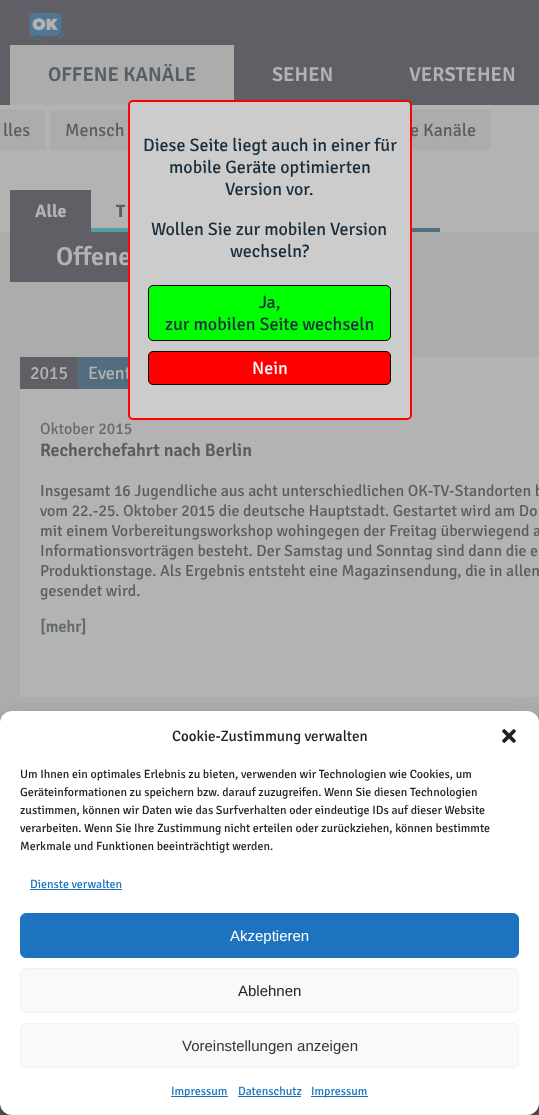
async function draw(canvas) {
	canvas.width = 539;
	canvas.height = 1115;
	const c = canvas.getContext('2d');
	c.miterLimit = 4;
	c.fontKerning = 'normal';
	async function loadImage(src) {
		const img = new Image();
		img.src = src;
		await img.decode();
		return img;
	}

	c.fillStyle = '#b3b3b3';
	c.fillRect(0, 0, 539, 1115);
	c.fillStyle = '#5f5f65';
	c.fillRect(0, 0, 539, 105);
	c.drawImage(await loadImage('img1.png'), 26, 10, 39, 32);
	c.fillStyle = '#acacac';
	c.fillRect(10, 45, 224, 60);
	c.font = '600 20px Signika';
	c.fillStyle = '#575f65';
	c.fillText('OFFENE KANÄLE', 48, 81);
	c.fillStyle = '#acacac';
	c.fillRect(0, 110, 45, 40);
	c.font = '18px Signika';
	c.fillStyle = '#575f65';
	c.fillText('lles', 3, 136);
	c.fillStyle = '#acacac';
	c.fillRect(50, 110, 78, 40);
	c.fillStyle = '#575f65';
	c.fillText('Mensch', 65, 136);
	c.fillStyle = '#acacac';
	c.fillRect(412, 110, 79, 40);
	c.fillStyle = '#575f65';
	c.fillText('e Kanäle', 410, 136);
	c.font = '600 20px Signika';
	c.fillStyle = '#b3b3b3';
	c.fillText('SEHEN', 272, 81);
	c.fillText('VERSTEHEN', 409, 81);
	c.fillStyle = '#5f5f65';
	c.fillRect(10, 190, 81, 42);
	c.font = 'bold 18px Signika';
	c.fillStyle = '#b3b3b3';
	c.fillText('Alle', 35, 217);
	c.fillStyle = '#575f65';
	c.fillText('T', 116, 217);
	for (const [x, y, w, h, color] of [
		[91, 228, 37, 4, '#529da6'],
		[412, 228, 28, 4, '#526e7e'],
		[0, 232, 539, 491, '#acacac'],
		[10, 232, 118, 50, '#5f5f65'],
	]) {
		c.fillStyle = color;
		c.fillRect(x, y, w, h);
	}
	c.font = '600 26px Signika';
	c.fillStyle = '#b3b3b3';
	c.fillText('Offene', 56, 265);
	c.fillRect(20, 357, 519, 340);
	c.fillStyle = '#526e7e';
	c.fillRect(78, 357, 50, 32);
	c.font = '18px Signika';
	c.fillStyle = '#b3b3b3';
	c.fillText('Event', 88, 379);
	c.fillStyle = '#ccc';
	c.beginPath();
	c.roundRect(129, 101, 282, 318, 4);
	c.fill();
	c.strokeStyle = '#f00';
	c.lineWidth = 2;
	c.stroke();
	c.fillStyle = '#192d3c';
	for (const [text, x, y] of [
		['Diese Seite liegt auch in einer für', 143, 151],
		['mobile Geräte optimierten', 169, 173],
		['Version vor.', 225, 195],
		['Wollen Sie zur mobilen Version', 151, 235],
		['wechseln?', 230, 257],
	]) {
		c.fillText(text, x, y);
	}
	c.fillStyle = '#0f0';
	c.beginPath();
	c.roundRect(148.5, 285.5, 242, 55, 4.5);
	c.fill();
	c.strokeStyle = '#000';
	c.lineWidth = 1;
	c.stroke();
	c.fillStyle = '#192d3c';
	c.fillText('Ja,', 259, 308);
	c.fillText('zur mobilen Seite wechseln', 165, 330);
	c.fillStyle = '#f00';
	c.beginPath();
	c.roundRect(148.5, 351.5, 242, 33, 4.5);
	c.fill();
	c.stroke();
	c.fillStyle = '#fff';
	c.fillText('Nein', 252, 374);
	c.fillStyle = '#5f5f65';
	c.fillRect(20, 357, 58, 32);
	c.fillStyle = '#b3b3b3';
	c.fillText('2015', 30, 379);
	c.font = '16px Signika';
	c.fillStyle = '#656c70';
	c.fillText('Oktober 2015', 40, 434);
	c.font = '600 18px Signika';
	c.fillStyle = '#5c5c5c';
	c.fillText('Recherchefahrt nach Berlin', 40, 456);
	c.font = '16px Signika';
	for (const [text, x, y] of [
		['Insgesamt 16 Jugendliche aus acht unterschiedlichen OK-TV-Standorten b', 40, 496],
		['vom 22.-25. Oktober 2015 die deutsche Hauptstadt. Gestartet wird am Do', 40, 516],
		['mit einem Vorbereitungsworkshop wohingegen der Freitag überwiegend a', 40, 536],
		['Informationsvorträgen besteht. Der Samstag und Sonntag sind dann die e', 40, 556],
		['Produktionstage. Als Ergebnis entsteht eine Magazinsendung, die in allen', 40, 576],
		['gesendet wird.', 40, 596],
	]) {
		c.fillText(text, x, y);
	}
	c.font = 'bold 16px "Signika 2"';
	c.fillStyle = '#656c70';
	c.fillText('[mehr]', 40, 632);
	c.fillStyle = '#5f5f65';
	c.fillRect(0, 1103, 539, 12);
	c.fillStyle = '#0000003b';
	c.filter = 'blur(3px)';
	c.beginPath();
	c.roundRect(0, 717, 539, 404, 12);
	c.fill();
	c.filter = 'none';
	c.fillStyle = '#00000030';
	c.filter = 'blur(10px)';
	c.beginPath();
	c.roundRect(0, 721, 539, 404, 12);
	c.fill();
	c.filter = 'none';
	c.fillStyle = '#fff';
	c.beginPath();
	c.roundRect(0, 711, 539, 404, 12);
	c.fill();
	c.font = '15px Signika';
	c.fillStyle = '#222';
	c.fillText('Cookie-Zustimmung verwalten', 172, 741);
	c.drawImage(await loadImage('img2.png'), 502, 729, 14, 14);
	c.font = '12px Signika';
	for (const [text, x, y] of [
		['Um Ihnen ein optimales Erlebnis zu bieten, verwenden wir Technologien wie Cookies, um', 20, 778],
		['Geräteinformationen zu speichern bzw. darauf zuzugreifen. Wenn Sie diesen Technologien', 20, 796],
		['zustimmen, können wir Daten wie das Surfverhalten oder eindeutige IDs auf dieser Website', 20, 814],
		['verarbeiten. Wenn Sie Ihre Zustimmung nicht erteilen oder zurückziehen, können bestimmte', 20, 832],
		['Merkmale und Funktionen beeinträchtigt werden.', 20, 850],
	]) {
		c.fillText(text, x, y);
	}
	c.fillStyle = '#1e73be';
	c.fillText('Dienste verwalten', 30, 888);
	c.fillRect(30, 889, 92, 1);
	c.beginPath();
	c.roundRect(20.5, 913.5, 498, 44, 5.5);
	c.fill();
	c.strokeStyle = '#1e73be';
	c.stroke();
	c.font = '15px Liberation Sans';
	c.fillStyle = '#fff';
	c.fillText('Akzeptieren', 230, 941);
	c.fillStyle = '#f9f9f9';
	c.beginPath();
	c.roundRect(20.5, 968.5, 498, 44, 5.5);
	c.fill();
	c.strokeStyle = '#f2f2f2';
	c.stroke();
	c.fillStyle = '#222';
	c.fillText('Ablehnen', 238, 996);
	c.fillStyle = '#f9f9f9';
	c.beginPath();
	c.roundRect(20.5, 1023.5, 498, 44, 5.5);
	c.fill();
	c.stroke();
	c.fillStyle = '#333';
	c.fillText('Voreinstellungen anzeigen', 182, 1051);
	c.fillStyle = '#1e73be';
	c.fillRect(171, 1096, 57, 1);
	c.font = '12px Signika';
	c.fillText('Impressum', 171, 1095);
	c.fillText('Datenschutz', 238, 1095);
	c.fillRect(238, 1096, 63, 1);
	c.fillRect(311, 1096, 57, 1);
	c.fillText('Impressum', 311, 1095);
}

draw(document.querySelector('canvas'));
